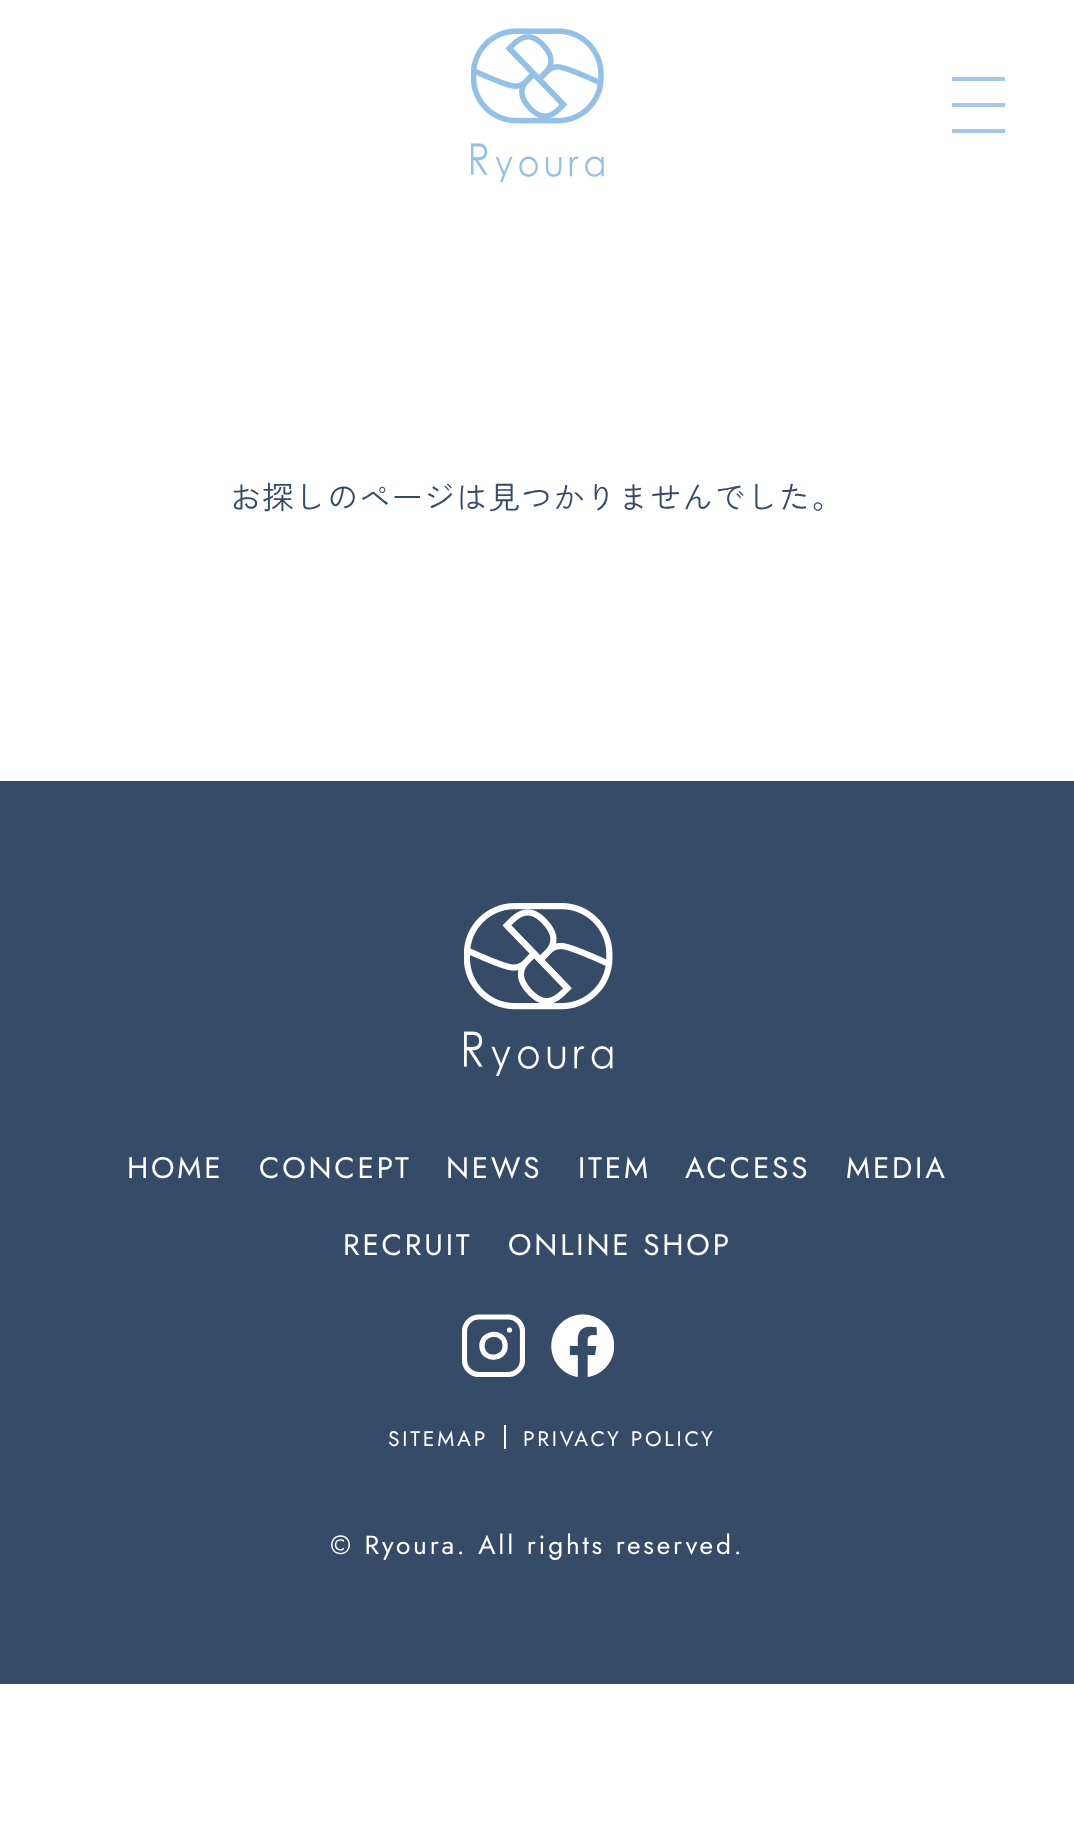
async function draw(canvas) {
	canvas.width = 1074;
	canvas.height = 1846;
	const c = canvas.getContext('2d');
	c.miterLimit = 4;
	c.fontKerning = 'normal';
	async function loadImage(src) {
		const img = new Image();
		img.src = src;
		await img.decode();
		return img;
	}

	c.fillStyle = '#fff';
	c.fillRect(0, 0, 1074, 1846);
	c.drawImage(await loadImage('img1.png'), 471, 28, 133, 154);
	for (const [x, y, w, h, color] of [
		[952, 77, 53, 4, '#a1c8ea'],
		[952, 103, 53, 4, '#a1c8ea'],
		[952, 129, 53, 4, '#a1c8ea'],
	]) {
		c.fillStyle = color;
		c.fillRect(x, y, w, h);
	}
	c.letterSpacing = '0.8px';
	c.font = '31.5px Zen Kaku Gothic New';
	c.fillStyle = '#364b67';
	c.fillText('お探しのページは見つかりませんでした。', 230, 509);
	c.fillRect(0, 781, 1074, 903);
	c.drawImage(await loadImage('img2.png'), 464, 903, 149, 173);
	c.letterSpacing = '2.8px';
	c.font = '29.75px Jost';
	c.fillStyle = '#fff';
	for (const [text, x, y] of [
		['HOME', 127, 1178],
		['CONCEPT', 259, 1178],
		['NEWS', 446, 1178],
		['ITEM', 578, 1178],
		['ACCESS', 685, 1178],
		['MEDIA', 846, 1178],
		['RECRUIT', 343, 1255],
		['ONLINE SHOP', 508, 1255],
	]) {
		c.fillText(text, x, y);
	}
	c.save();
	c.beginPath();
	c.rect(462, 1314, 63, 63);
	c.clip();
	c.beginPath();
	c.moveTo(479, 1317);
	c.lineTo(508, 1317);
	c.bezierCurveTo(516, 1317, 522.5, 1323.5, 522.5, 1331.5);
	c.lineTo(522.5, 1360);
	c.bezierCurveTo(522.5, 1368, 516, 1374.5, 508, 1374.5);
	c.lineTo(479, 1374.5);
	c.bezierCurveTo(471, 1374.5, 464.5, 1368, 464.5, 1360);
	c.lineTo(464.5, 1331.5);
	c.bezierCurveTo(464.5, 1323.5, 471, 1317, 479, 1317);
	c.closePath();
	c.strokeStyle = '#fff';
	c.lineWidth = 5.2;
	c.lineCap = 'round';
	c.lineJoin = 'round';
	c.stroke();
	c.restore();
	c.beginPath();
	c.moveTo(505, 1344);
	c.bezierCurveTo(507.5, 1359, 484.5, 1362.5, 482, 1347.5);
	c.bezierCurveTo(480, 1332.5, 503, 1329, 505, 1344);
	c.closePath();
	c.moveTo(509.5, 1330);
	c.lineTo(509.5, 1330);
	c.strokeStyle = '#fff';
	c.lineWidth = 5.2;
	c.lineCap = 'round';
	c.lineJoin = 'round';
	c.stroke();
	c.drawImage(await loadImage('img3.png'), 551, 1314, 63, 63);
	c.font = '21px Jost';
	c.fillText('SITEMAP', 388, 1446);
	c.fillRect(504, 1425, 2, 24);
	c.fillText('PRIVACY POLICY', 523, 1446);
	c.font = '26.25px Jost';
	c.fillText('© Ryoura. All rights reserved.', 330, 1554);
}

draw(document.querySelector('canvas'));
